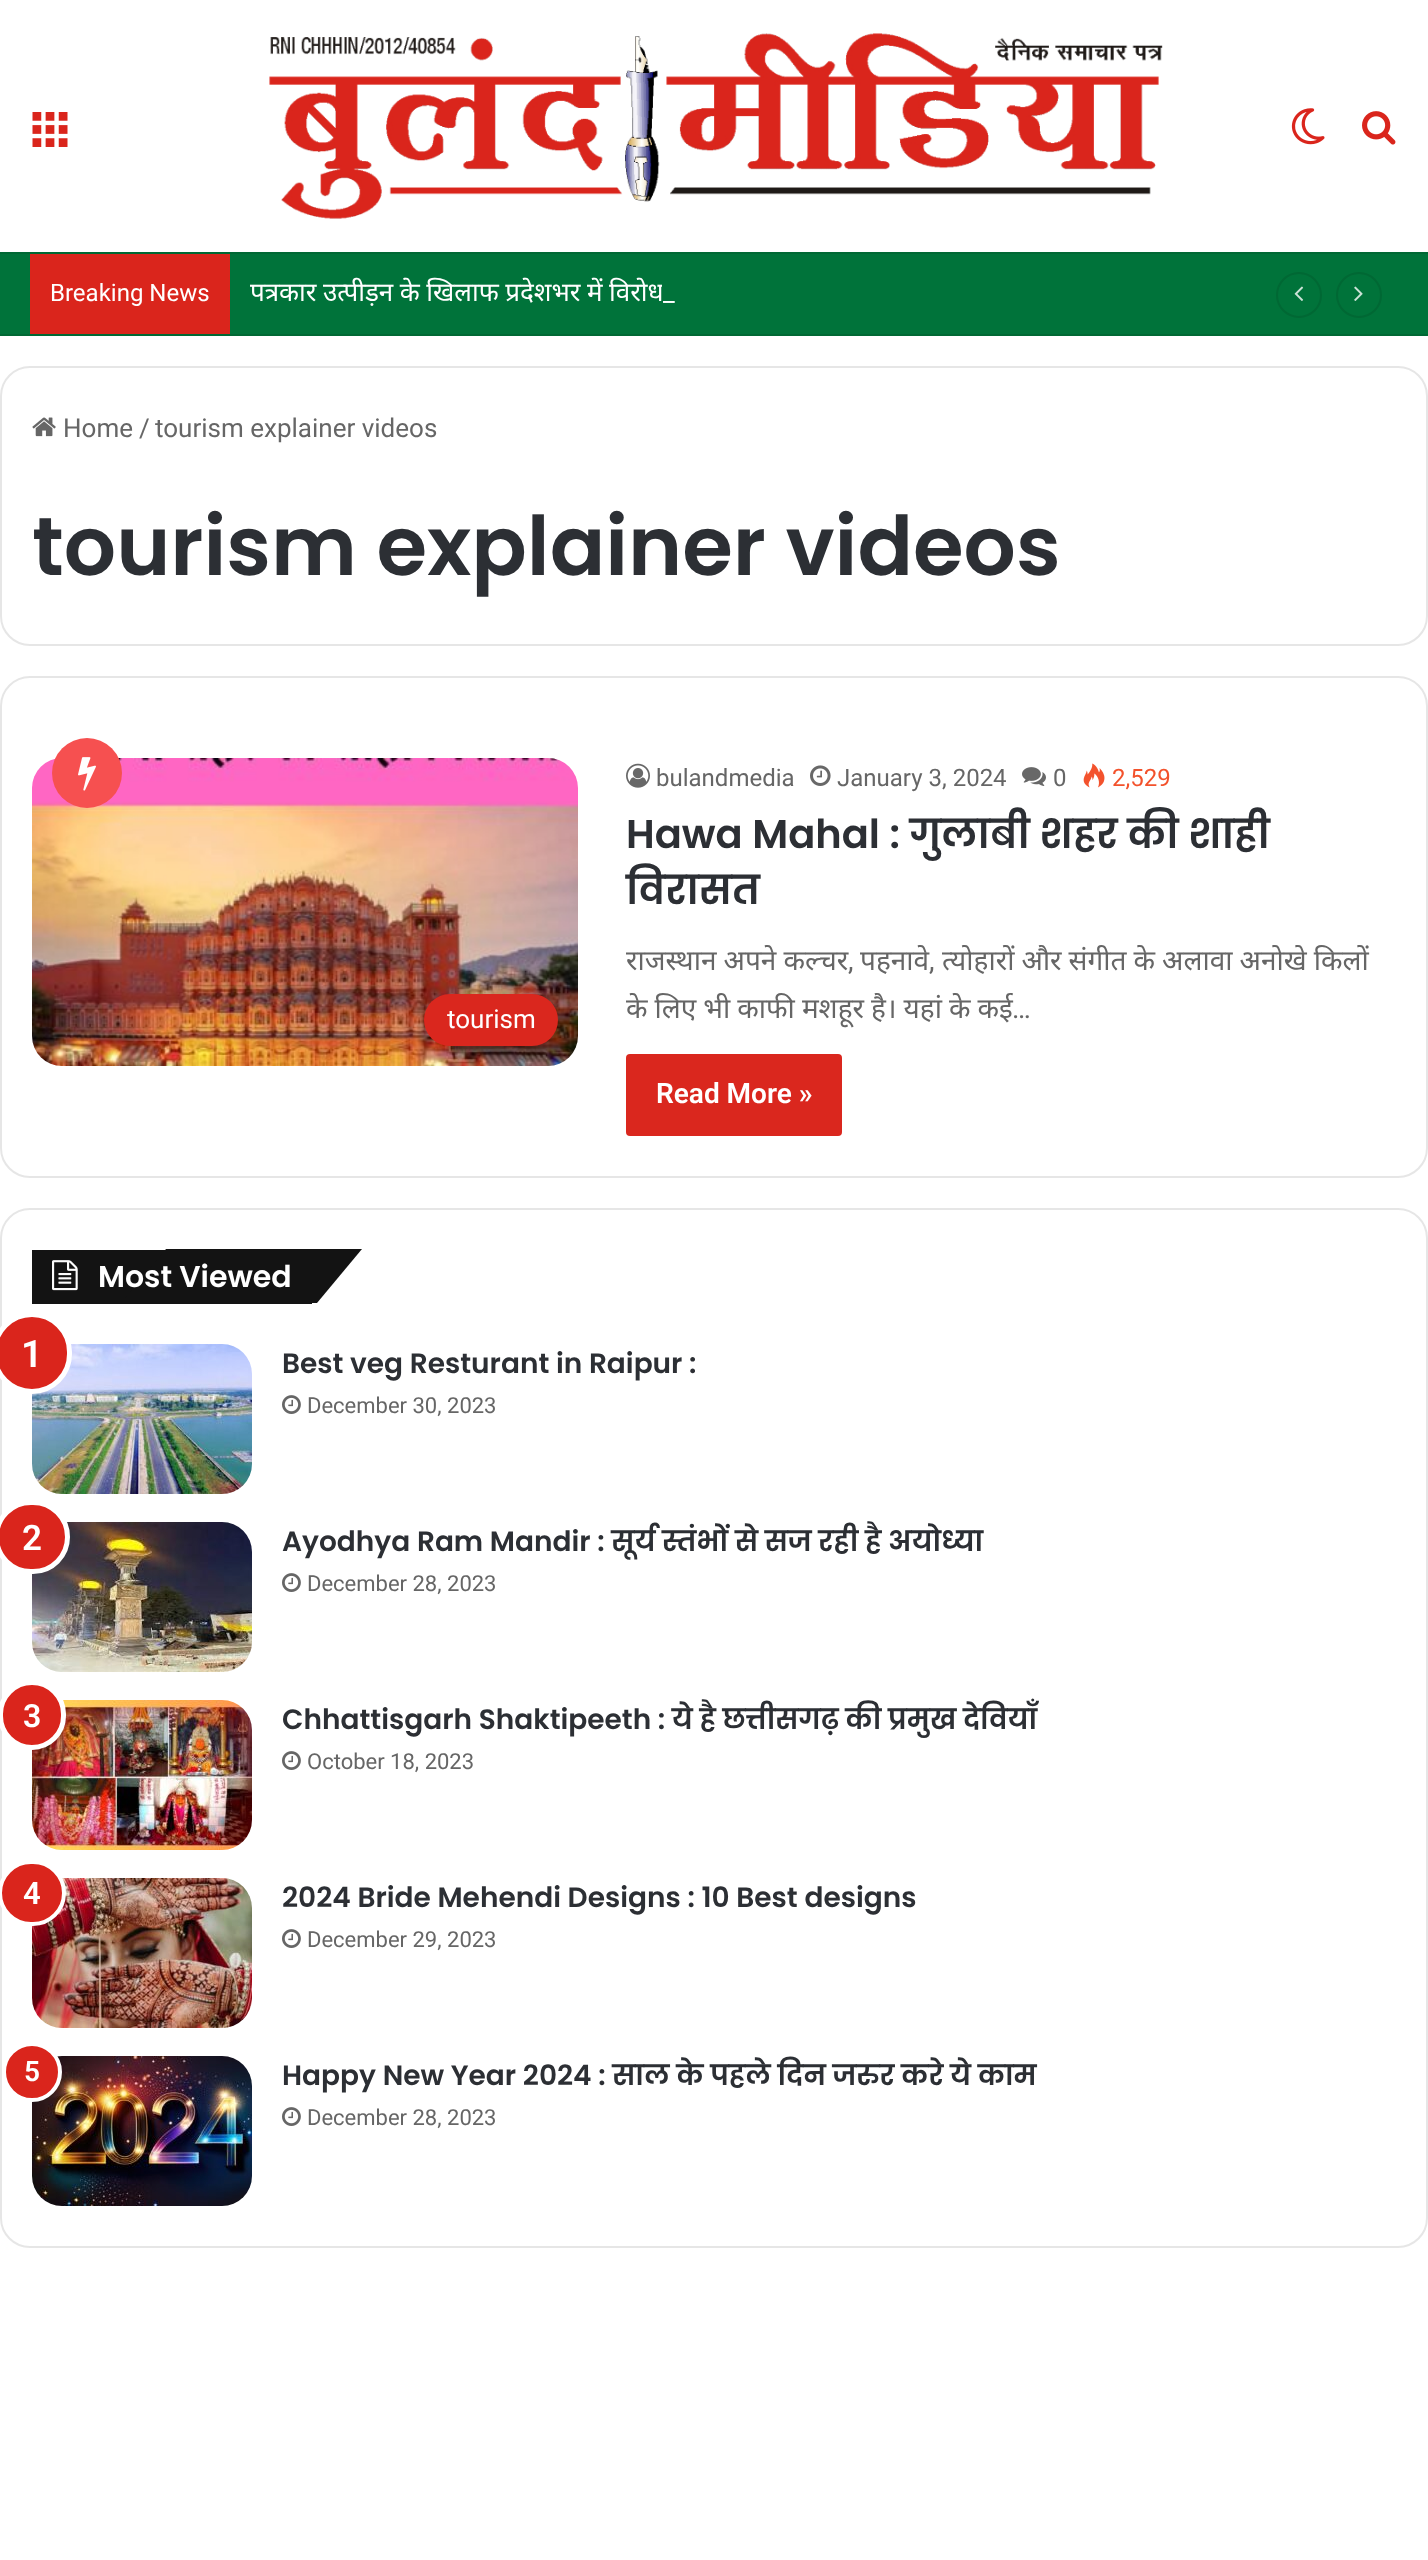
async function draw(canvas) {
	canvas.width = 1428;
	canvas.height = 2560;
	const c = canvas.getContext('2d');
	c.miterLimit = 4;
	c.fontKerning = 'normal';
	async function loadImage(src) {
		const img = new Image();
		img.src = src;
		await img.decode();
		return img;
	}

	c.fillStyle = '#fff';
	c.fillRect(0, 0, 1428, 2560);
	c.drawImage(await loadImage('img1.png'), 32, 112, 36, 35);
	c.drawImage(await loadImage('img2.png'), 269, 33, 894, 186);
	c.drawImage(await loadImage('img3.png'), 1291, 108, 34, 37);
	c.drawImage(await loadImage('img4.png'), 1362, 111, 34, 34);
	for (const [x, y, w, h, color] of [
		[0, 254, 1428, 80, '#00733a'],
		[0, 252, 1428, 2, '#006834'],
		[0, 334, 1428, 2, '#006834'],
		[30, 254, 200, 80, '#da251c'],
	]) {
		c.fillStyle = color;
		c.fillRect(x, y, w, h);
	}
	c.font = '24px Roboto';
	c.fillStyle = '#fff';
	c.fillText('Breaking News', 50, 301);
	c.save();
	c.beginPath();
	c.rect(250, 254, 680, 80);
	c.clip();
	c.wordSpacing = '-0.25px';
	c.font = '26px Noto Sans';
	c.fillText('पत्रकार उत्पीड़न के खिलाफ प्रदेशभर में विरोध', 250, 301);
	c.restore();
	c.fillStyle = '#00733a';
	c.fillRect(662, 284, 2, 3);
	c.font = '26px Roboto';
	c.fillStyle = '#fff';
	c.fillText('_', 663, 301);
	c.beginPath();
	c.arc(1299, 295, 22, 0, 2 * Math.PI);
	c.strokeStyle = '#006834';
	c.lineWidth = 2;
	c.stroke();
	c.drawImage(await loadImage('img5.png'), 1294, 286, 10, 15);
	c.beginPath();
	c.arc(1359, 295, 22, 0, 2 * Math.PI);
	c.stroke();
	c.drawImage(await loadImage('img6.png'), 1354, 286, 9, 15);
	c.beginPath();
	c.roundRect(1, 367, 1426, 278, 29);
	c.strokeStyle = '#e6e6e6';
	c.stroke();
	c.drawImage(await loadImage('img7.png'), 32, 417, 24, 20);
	c.fillStyle = '#666';
	for (const [text, x, y] of [
		['Home', 63, 437],
		['/', 139, 437],
		['tourism explainer videos', 155, 437],
	]) {
		c.fillText(text, x, y);
	}
	c.font = '600 82px Poppins';
	c.fillStyle = '#2c2f34';
	c.fillText('tourism explainer videos', 32, 575);
	c.beginPath();
	c.roundRect(1, 677, 1426, 500, 29);
	c.stroke();
	c.drawImage(await loadImage('img9.png'), 32, 758, 546, 308);
	c.fillStyle = '#f65050';
	c.beginPath();
	c.arc(87, 773, 35, 0, 2 * Math.PI);
	c.fill();
	c.drawImage(await loadImage('img8.png'), 78, 757, 18, 34);
	c.fillStyle = '#da271e';
	c.beginPath();
	c.roundRect(424, 994, 134, 52, 26);
	c.fill();
	c.font = '26px Roboto';
	c.fillStyle = '#fff';
	c.fillText('tourism', 447, 1028);
	c.drawImage(await loadImage('img10.png'), 626, 763, 24, 25);
	c.font = '24px Roboto';
	c.fillStyle = '#666';
	c.fillText('bulandmedia', 656, 786);
	c.drawImage(await loadImage('img11.png'), 810, 765, 21, 21);
	c.fillText('January 3, 2024', 837, 786);
	c.drawImage(await loadImage('img12.png'), 1022, 767, 24, 19);
	c.fillText('0', 1053, 786);
	c.drawImage(await loadImage('img13.png'), 1083, 763, 22, 25);
	c.fillStyle = '#f3522c';
	c.fillText('2,529', 1112, 786);
	c.font = '600 40px Poppins';
	c.fillStyle = '#2c2f34';
	c.fillText('Hawa Mahal : गुलाबी शहर की शाही', 626, 848);
	c.fillText('विरासत', 626, 904);
	c.wordSpacing = '-0.25px';
	c.font = '28px Noto Sans';
	c.fillStyle = '#666';
	c.fillText('राजस्थान अपने कल्चर', 626, 970);
	c.wordSpacing = '0px';
	c.font = '28px Roboto';
	c.fillText(',', 848, 970);
	c.font = '28px Noto Sans';
	c.fillText('पहनावे', 860, 970);
	c.font = '28px Roboto';
	c.fillText(',', 929, 970);
	c.wordSpacing = '-0.25px';
	c.font = '28px Noto Sans';
	c.fillText('त्योहारों और संगीत के अलावा अनोखे किलों', 942, 970);
	c.fillText('के लिए भी काफी मशहूर है। यहां के कई', 626, 1018);
	c.wordSpacing = '0px';
	c.font = '28px Roboto';
	c.fillText('…', 1012, 1018);
	c.fillStyle = '#da271e';
	c.beginPath();
	c.roundRect(626, 1054, 216, 82, 4);
	c.fill();
	c.font = '600 28px Roboto';
	c.fillStyle = '#fff';
	c.fillText('Read More »', 656, 1103);
	c.beginPath();
	c.roundRect(1, 1209, 1426, 1038, 29);
	c.stroke();
	c.fillStyle = '#131313';
	c.fillRect(32, 1250, 280, 54);
	c.beginPath();
	c.moveTo(166, 1249);
	c.lineTo(362, 1249);
	c.lineTo(317, 1303);
	c.lineTo(121, 1303);
	c.closePath();
	c.fill();
	c.drawImage(await loadImage('img14.png'), 52, 1260, 26, 31);
	c.font = '600 30px Poppins';
	c.fillStyle = '#fff';
	c.fillText('Most Viewed', 98, 1287);
	c.drawImage(await loadImage('img15.png'), 32, 1344, 220, 150);
	c.fillStyle = '#da251c';
	c.beginPath();
	c.roundRect(-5.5, 1314.5, 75, 77, 37.5);
	c.fill();
	c.strokeStyle = '#fff';
	c.lineWidth = 5;
	c.stroke();
	c.font = '600 38px Roboto';
	c.fillStyle = '#fff';
	c.fillText('1', 21, 1367);
	c.font = '600 28px Poppins';
	c.fillStyle = '#2c2f34';
	c.fillText('Best veg Resturant in Raipur :', 282, 1373);
	c.drawImage(await loadImage('img16.png'), 282, 1395, 19, 19);
	c.font = '22px Roboto';
	c.fillStyle = '#666';
	c.fillText('December 30, 2023', 307, 1413);
	c.drawImage(await loadImage('img17.png'), 32, 1522, 220, 150);
	c.font = '600 28px Poppins';
	c.fillStyle = '#2c2f34';
	c.fillText('Ayodhya Ram Mandir : सूर्य स्तंभों से सज रही है अयोध्या', 282, 1551);
	c.drawImage(await loadImage('img16.png'), 282, 1573, 19, 19);
	c.font = '22px Roboto';
	c.fillStyle = '#666';
	c.fillText('December 28, 2023', 307, 1591);
	c.fillStyle = '#da251c';
	c.beginPath();
	c.roundRect(-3.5, 1502.5, 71, 69, 34.5);
	c.fill();
	c.stroke();
	c.font = '600 35px Roboto';
	c.fillStyle = '#fff';
	c.fillText('2', 22, 1550);
	c.drawImage(await loadImage('img18.png'), 32, 1700, 220, 150);
	c.fillStyle = '#da251c';
	c.beginPath();
	c.roundRect(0.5, 1682.5, 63, 65, 31.5);
	c.fill();
	c.stroke();
	c.font = '600 32px Roboto';
	c.fillStyle = '#fff';
	c.fillText('3', 23, 1727);
	c.font = '600 28px Poppins';
	c.fillStyle = '#2c2f34';
	c.fillText('Chhattisgarh Shaktipeeth : ये है छत्तीसगढ़ की प्रमुख देवियाँ', 282, 1729);
	c.drawImage(await loadImage('img16.png'), 282, 1751, 19, 19);
	c.font = '22px Roboto';
	c.fillStyle = '#666';
	c.fillText('October 18, 2023', 307, 1769);
	c.drawImage(await loadImage('img19.png'), 32, 1878, 220, 150);
	c.fillStyle = '#da251c';
	c.beginPath();
	c.roundRect(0, 1862, 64, 62, 31);
	c.fill();
	c.lineWidth = 4;
	c.stroke();
	c.font = '600 31px Roboto';
	c.fillStyle = '#fff';
	c.fillText('4', 23, 1904);
	c.font = '600 28px Poppins';
	c.fillStyle = '#2c2f34';
	c.fillText('2024 Bride Mehendi Designs : 10 Best designs', 282, 1907);
	c.drawImage(await loadImage('img16.png'), 282, 1929, 19, 19);
	c.font = '22px Roboto';
	c.fillStyle = '#666';
	c.fillText('December 29, 2023', 307, 1947);
	c.drawImage(await loadImage('img20.png'), 32, 2056, 220, 150);
	c.font = '600 28px Poppins';
	c.fillStyle = '#2c2f34';
	c.fillText('Happy New Year 2024 : साल के पहले दिन जरुर करे ये काम', 282, 2085);
	c.drawImage(await loadImage('img16.png'), 282, 2107, 19, 19);
	c.font = '22px Roboto';
	c.fillStyle = '#666';
	c.fillText('December 28, 2023', 307, 2125);
	c.fillStyle = '#da251c';
	c.beginPath();
	c.arc(32, 2072, 28, 0, 2 * Math.PI);
	c.fill();
	c.stroke();
	c.font = '600 28px Roboto';
	c.fillStyle = '#fff';
	c.fillText('5', 24, 2081);
}

draw(document.querySelector('canvas'));
